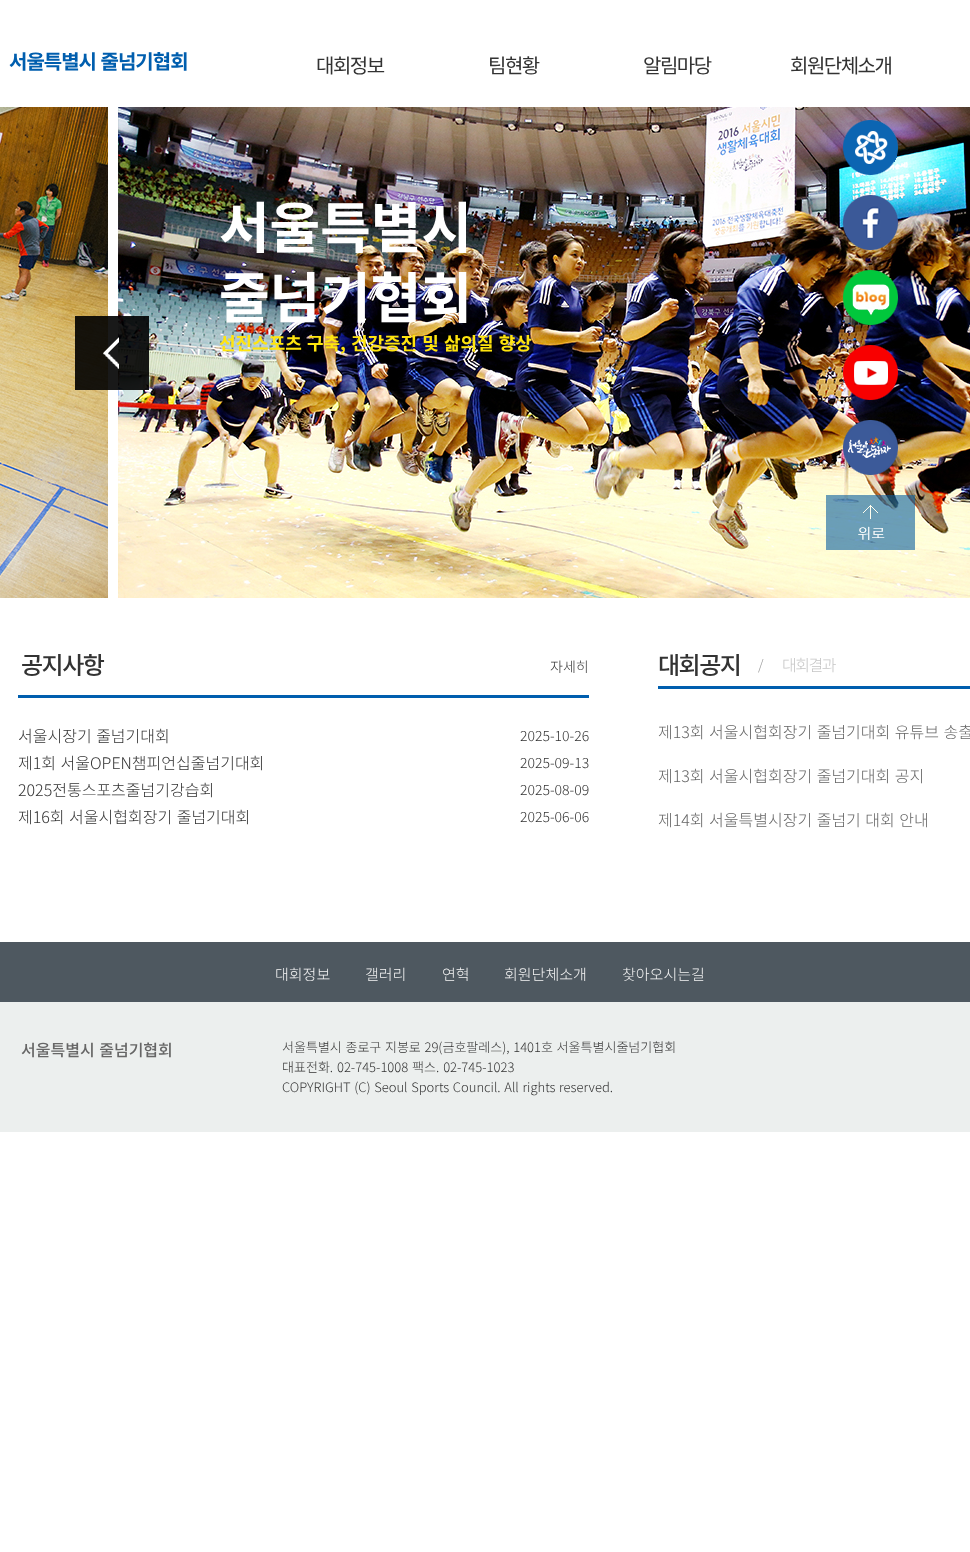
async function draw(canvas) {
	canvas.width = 970;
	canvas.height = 1552;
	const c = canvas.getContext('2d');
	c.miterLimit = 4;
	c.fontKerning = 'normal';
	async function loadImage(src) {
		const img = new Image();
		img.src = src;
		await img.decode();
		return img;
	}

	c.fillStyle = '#fff';
	c.fillRect(0, 0, 970, 1552);
	c.letterSpacing = '-1px';
	c.wordSpacing = '1px';
	c.font = 'bold 20px Noto Sans KR';
	c.fillStyle = '#005eae';
	c.fillText('서울특별시 줄넘기협회', 9, 69);
	c.letterSpacing = '-1.5px';
	c.wordSpacing = '0px';
	c.font = '20px Noto Sans KR';
	c.fillStyle = '#333';
	for (const [text, x, y] of [
		['대회정보', 316, 73],
		['팀현황', 488, 73],
		['알림마당', 643, 73],
		['회원단체소개', 790, 73],
	]) {
		c.fillText(text, x, y);
	}
	c.drawImage(await loadImage('img1.png'), 0, 107, 108, 491);
	c.drawImage(await loadImage('img2.png'), 118, 107, 852, 491);
	c.drawImage(await loadImage('img3.png'), 75, 316, 74, 74);
	c.letterSpacing = '0px';
	c.font = 'bold 55px Noto Sans KR';
	c.fillStyle = '#fff';
	c.fillText('서울특별시', 219, 248);
	c.fillText('줄넘기협회', 219, 318);
	c.wordSpacing = '1px';
	c.font = 'bold 18px Noto Sans KR';
	c.fillStyle = '#ffe50e';
	c.fillText('선진스포츠 구축, 건강증진 및 삶의질 향상', 219, 350);
	c.drawImage(await loadImage('img4.png'), 843, 120, 55, 55);
	c.drawImage(await loadImage('img5.png'), 843, 195, 55, 55);
	c.drawImage(await loadImage('img6.png'), 843, 270, 55, 55);
	c.drawImage(await loadImage('img7.png'), 843, 345, 55, 55);
	c.drawImage(await loadImage('img8.png'), 843, 420, 55, 55);
	c.drawImage(await loadImage('img9.png'), 826, 495, 89, 55);
	c.letterSpacing = '-1.5px';
	c.wordSpacing = '0px';
	c.font = '500 24px Noto Sans KR';
	c.fillStyle = '#333';
	c.fillText('공지사항', 21, 674);
	c.letterSpacing = '0px';
	c.font = '300 14px Noto Sans KR';
	c.fillText('자세히', 550, 672);
	c.fillStyle = '#005eae';
	c.fillRect(18, 695, 571, 3);
	c.wordSpacing = '1px';
	c.font = '300 16px Noto Sans KR';
	c.fillStyle = '#333';
	c.fillText('서울시장기 줄넘기대회', 18, 742);
	c.wordSpacing = '0px';
	c.font = '300 14px Noto Sans KR';
	c.fillText('2025-10-26', 520, 741);
	c.wordSpacing = '1px';
	c.font = '300 16px Noto Sans KR';
	c.fillText('제1회 서울OPEN챔피언십줄넘기대회', 18, 769);
	c.wordSpacing = '0px';
	c.font = '300 14px Noto Sans KR';
	c.fillText('2025-09-13', 520, 768);
	c.font = '300 16px Noto Sans KR';
	c.fillText('2025전통스포츠줄넘기강습회', 18, 796);
	c.font = '300 14px Noto Sans KR';
	c.fillText('2025-08-09', 520, 795);
	c.wordSpacing = '1px';
	c.font = '300 16px Noto Sans KR';
	c.fillText('제16회 서울시협회장기 줄넘기대회', 18, 823);
	c.wordSpacing = '0px';
	c.font = '300 14px Noto Sans KR';
	c.fillText('2025-06-06', 520, 822);
	c.letterSpacing = '-1.5px';
	c.font = '500 24px Noto Sans KR';
	c.fillText('대회공지', 658, 674);
	c.letterSpacing = '0px';
	c.font = '300 14px Noto Sans KR';
	c.fillStyle = '#999';
	c.fillText('/', 758, 670);
	c.fillStyle = '#005eae';
	c.fillRect(658, 686, 312, 3);
	c.wordSpacing = '1px';
	c.font = '300 16px Noto Sans KR';
	c.fillStyle = '#666';
	for (const [text, x, y] of [
		['제13회 서울시협회장기 줄넘기대회 유튜브 송출', 658, 738],
		['제13회 서울시협회장기 줄넘기대회 공지', 658, 782],
		['제14회 서울특별시장기 줄넘기 대회 안내', 658, 826],
	]) {
		c.fillText(text, x, y);
	}
	c.letterSpacing = '-1.5px';
	c.wordSpacing = '0px';
	c.fillStyle = '#c6c6c6';
	c.fillText('대회결과', 782, 671);
	c.fillStyle = '#4e5860';
	c.fillRect(0, 942, 970, 60);
	c.letterSpacing = '0px';
	c.font = '300 15px Noto Sans KR';
	c.fillStyle = '#f4f4f4';
	for (const [text, x, y] of [
		['대회정보', 275, 980],
		['갤러리', 365, 980],
		['연혁', 442, 980],
		['회원단체소개', 504, 980],
		['찾아오시는길', 622, 980],
	]) {
		c.fillText(text, x, y);
	}
	c.fillStyle = '#ecefee';
	c.fillRect(0, 1002, 970, 130);
	c.wordSpacing = '1px';
	c.font = '500 16px Noto Sans KR';
	c.fillStyle = '#666';
	c.fillText('서울특별시 줄넘기협회', 21, 1056);
	c.wordSpacing = '0.75px';
	c.font = '300 13px Noto Sans KR';
	c.fillStyle = '#333';
	c.fillText('서울특별시 종로구 지봉로 29(금호팔레스), 1401호 서울특별시줄넘기협회', 282, 1052);
	c.wordSpacing = '1px';
	c.fillText('대표전화. 02-745-1008 팩스. 02-745-1023', 282, 1072);
	c.wordSpacing = '0.75px';
	c.fillText('COPYRIGHT (C) Seoul Sports Council. All rights reserved.', 282, 1092);
}

draw(document.querySelector('canvas'));
